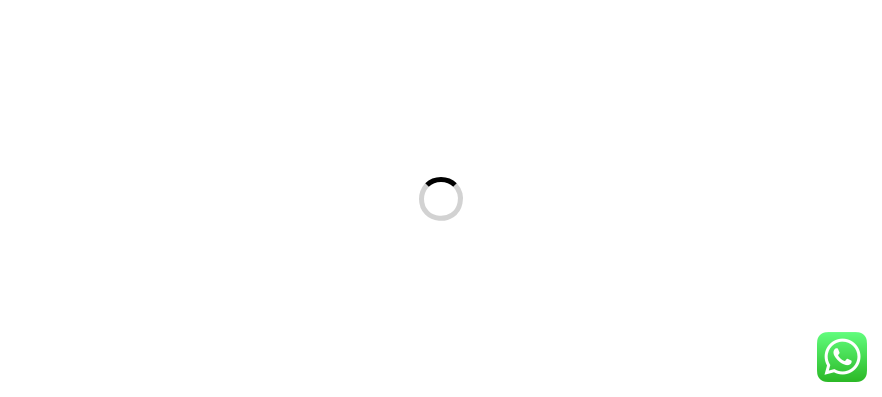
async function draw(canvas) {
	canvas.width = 882;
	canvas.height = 397;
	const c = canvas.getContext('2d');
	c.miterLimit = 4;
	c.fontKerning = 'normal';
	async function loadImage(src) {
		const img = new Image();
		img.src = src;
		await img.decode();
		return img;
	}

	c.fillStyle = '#fff';
	c.fillRect(0, 0, 882, 397);
	c.beginPath();
	c.moveTo(427, 185);
	c.bezierCurveTo(434.5, 177.5, 447.5, 177.5, 455, 185);
	c.strokeStyle = '#000';
	c.lineWidth = 5;
	c.stroke();
	c.beginPath();
	c.moveTo(455, 185);
	c.bezierCurveTo(459.5, 190, 461.5, 196.5, 460, 203);
	c.bezierCurveTo(455.5, 225.5, 421.5, 222.5, 421.5, 199);
	c.bezierCurveTo(421.5, 194, 423.5, 189, 427, 185);
	c.strokeStyle = '#1d1d1d33';
	c.stroke();
	c.drawImage(await loadImage('img1.png'), 817, 332, 50, 50);
}

draw(document.querySelector('canvas'));
